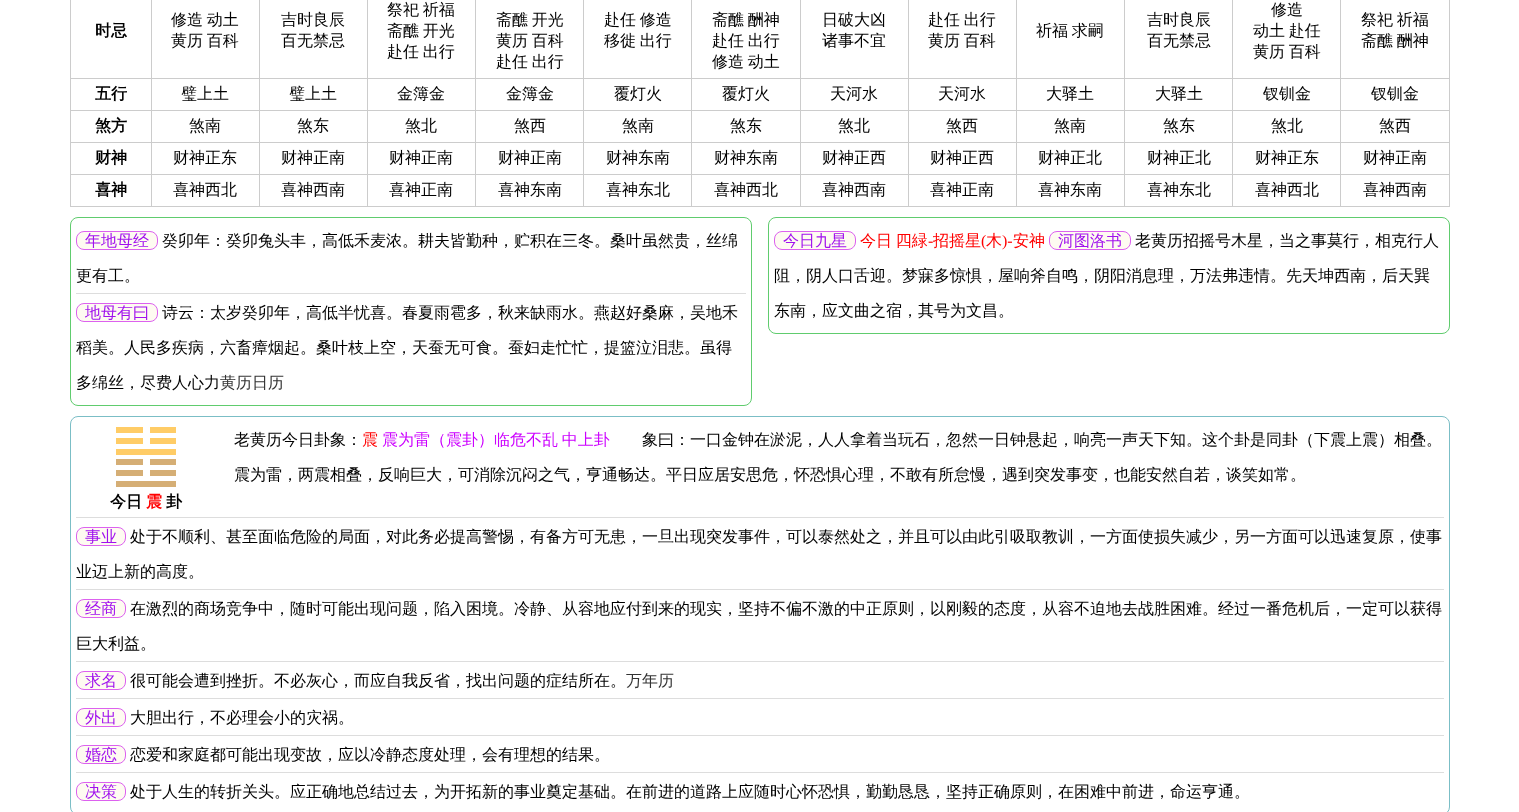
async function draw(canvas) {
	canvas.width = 1519;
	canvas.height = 812;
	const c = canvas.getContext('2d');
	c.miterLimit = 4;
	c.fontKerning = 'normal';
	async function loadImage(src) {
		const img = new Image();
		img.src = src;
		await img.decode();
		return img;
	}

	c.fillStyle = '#fff';
	c.fillRect(0, 0, 1519, 812);
	for (const [x, y, w, h, color] of [
		[1449, 0, 1, 207, '#ccc'],
		[70, 206, 1380, 1, '#ccc'],
		[70, 0, 1, 207, '#ccc'],
	]) {
		c.fillStyle = color;
		c.fillRect(x, y, w, h);
	}
	c.font = 'bold 16px WenQuanYi Zen Hei';
	c.fillStyle = '#000';
	c.fillText('时忌', 95, 36);
	for (const [x, y, w, h, color] of [
		[1340, 78, 110, 1, '#ccc'],
		[1340, 110, 110, 1, '#ccc'],
		[1340, 142, 110, 1, '#ccc'],
		[1340, 174, 110, 1, '#ccc'],
		[1340, 174, 1, 33, '#ccc'],
		[1232, 174, 109, 1, '#ccc'],
		[1340, 142, 1, 33, '#ccc'],
		[1232, 142, 109, 1, '#ccc'],
		[1340, 110, 1, 33, '#ccc'],
		[1232, 110, 109, 1, '#ccc'],
		[1340, 78, 1, 33, '#ccc'],
		[1232, 78, 109, 1, '#ccc'],
		[1232, 174, 1, 33, '#ccc'],
		[1124, 174, 109, 1, '#ccc'],
		[1232, 142, 1, 33, '#ccc'],
		[1124, 142, 109, 1, '#ccc'],
		[1232, 110, 1, 33, '#ccc'],
		[1124, 110, 109, 1, '#ccc'],
		[1232, 78, 1, 33, '#ccc'],
		[1124, 78, 109, 1, '#ccc'],
		[1124, 174, 1, 33, '#ccc'],
		[1016, 174, 109, 1, '#ccc'],
		[1124, 142, 1, 33, '#ccc'],
		[1016, 142, 109, 1, '#ccc'],
		[1124, 110, 1, 33, '#ccc'],
		[1016, 110, 109, 1, '#ccc'],
		[1124, 78, 1, 33, '#ccc'],
		[1016, 78, 109, 1, '#ccc'],
		[1016, 174, 1, 33, '#ccc'],
		[908, 174, 109, 1, '#ccc'],
		[1016, 142, 1, 33, '#ccc'],
		[908, 142, 109, 1, '#ccc'],
		[1016, 110, 1, 33, '#ccc'],
		[908, 110, 109, 1, '#ccc'],
		[1016, 78, 1, 33, '#ccc'],
		[908, 78, 109, 1, '#ccc'],
		[908, 174, 1, 33, '#ccc'],
		[800, 174, 109, 1, '#ccc'],
		[908, 142, 1, 33, '#ccc'],
		[800, 142, 109, 1, '#ccc'],
		[908, 110, 1, 33, '#ccc'],
		[800, 110, 109, 1, '#ccc'],
		[908, 78, 1, 33, '#ccc'],
		[800, 78, 109, 1, '#ccc'],
		[800, 174, 1, 33, '#ccc'],
		[691, 174, 110, 1, '#ccc'],
		[800, 142, 1, 33, '#ccc'],
		[691, 142, 110, 1, '#ccc'],
		[800, 110, 1, 33, '#ccc'],
		[691, 110, 110, 1, '#ccc'],
		[800, 78, 1, 33, '#ccc'],
		[691, 78, 110, 1, '#ccc'],
		[691, 174, 1, 33, '#ccc'],
		[583, 174, 109, 1, '#ccc'],
		[691, 142, 1, 33, '#ccc'],
		[583, 142, 109, 1, '#ccc'],
		[691, 110, 1, 33, '#ccc'],
		[583, 110, 109, 1, '#ccc'],
		[691, 78, 1, 33, '#ccc'],
		[583, 78, 109, 1, '#ccc'],
		[583, 174, 1, 33, '#ccc'],
		[475, 174, 109, 1, '#ccc'],
		[583, 142, 1, 33, '#ccc'],
		[475, 142, 109, 1, '#ccc'],
		[583, 110, 1, 33, '#ccc'],
		[475, 110, 109, 1, '#ccc'],
		[583, 78, 1, 33, '#ccc'],
		[475, 78, 109, 1, '#ccc'],
		[475, 174, 1, 33, '#ccc'],
		[367, 174, 109, 1, '#ccc'],
		[475, 142, 1, 33, '#ccc'],
		[367, 142, 109, 1, '#ccc'],
		[475, 110, 1, 33, '#ccc'],
		[367, 110, 109, 1, '#ccc'],
		[475, 78, 1, 33, '#ccc'],
		[367, 78, 109, 1, '#ccc'],
		[367, 174, 1, 33, '#ccc'],
		[259, 174, 109, 1, '#ccc'],
		[367, 142, 1, 33, '#ccc'],
		[259, 142, 109, 1, '#ccc'],
		[367, 110, 1, 33, '#ccc'],
		[259, 110, 109, 1, '#ccc'],
		[367, 78, 1, 33, '#ccc'],
		[259, 78, 109, 1, '#ccc'],
		[259, 174, 1, 33, '#ccc'],
		[151, 174, 109, 1, '#ccc'],
		[259, 142, 1, 33, '#ccc'],
		[151, 142, 109, 1, '#ccc'],
		[259, 110, 1, 33, '#ccc'],
		[151, 110, 109, 1, '#ccc'],
		[259, 78, 1, 33, '#ccc'],
		[151, 78, 109, 1, '#ccc'],
		[151, 174, 1, 33, '#ccc'],
		[70, 174, 82, 1, '#ccc'],
		[151, 142, 1, 33, '#ccc'],
		[70, 142, 82, 1, '#ccc'],
		[151, 110, 1, 33, '#ccc'],
		[70, 110, 82, 1, '#ccc'],
		[151, 78, 1, 33, '#ccc'],
		[70, 78, 82, 1, '#ccc'],
		[151, 0, 1, 79, '#ccc'],
	]) {
		c.fillStyle = color;
		c.fillRect(x, y, w, h);
	}
	c.wordSpacing = '-1px';
	c.font = '500 16px WenQuanYi Zen Hei';
	c.fillStyle = '#000';
	c.fillText('修造 动土', 171, 25);
	c.fillText('黄历 百科', 171, 46);
	c.fillStyle = '#ccc';
	c.fillRect(259, 0, 1, 79);
	c.wordSpacing = '0px';
	c.fillStyle = '#000';
	c.fillText('吉时良辰', 281, 25);
	c.fillText('百无禁忌', 281, 46);
	c.fillStyle = '#ccc';
	c.fillRect(367, 0, 1, 79);
	c.wordSpacing = '-1px';
	c.fillStyle = '#000';
	for (const [text, x, y] of [
		['祭祀 祈福', 387, 15],
		['斋醮 开光', 387, 36],
		['赴任 出行', 387, 57],
	]) {
		c.fillText(text, x, y);
	}
	c.fillStyle = '#ccc';
	c.fillRect(475, 0, 1, 79);
	c.fillStyle = '#000';
	for (const [text, x, y] of [
		['斋醮 开光', 496, 25],
		['黄历 百科', 496, 46],
		['赴任 出行', 496, 67],
	]) {
		c.fillText(text, x, y);
	}
	c.fillStyle = '#ccc';
	c.fillRect(583, 0, 1, 79);
	c.fillStyle = '#000';
	c.fillText('赴任 修造', 604, 25);
	c.fillText('移徙 出行', 604, 46);
	c.fillStyle = '#ccc';
	c.fillRect(691, 0, 1, 79);
	c.fillStyle = '#000';
	for (const [text, x, y] of [
		['斋醮 酬神', 712, 25],
		['赴任 出行', 712, 46],
		['修造 动土', 712, 67],
	]) {
		c.fillText(text, x, y);
	}
	c.fillStyle = '#ccc';
	c.fillRect(800, 0, 1, 79);
	c.wordSpacing = '0px';
	c.fillStyle = '#000';
	c.fillText('日破大凶', 822, 25);
	c.fillText('诸事不宜', 822, 46);
	c.fillStyle = '#ccc';
	c.fillRect(908, 0, 1, 79);
	c.wordSpacing = '-1px';
	c.fillStyle = '#000';
	c.fillText('赴任 出行', 928, 25);
	c.fillText('黄历 百科', 928, 46);
	c.fillStyle = '#ccc';
	c.fillRect(1016, 0, 1, 79);
	c.fillStyle = '#000';
	c.fillText('祈福 求嗣', 1036, 36);
	c.fillStyle = '#ccc';
	c.fillRect(1124, 0, 1, 79);
	c.wordSpacing = '0px';
	c.fillStyle = '#000';
	c.fillText('吉时良辰', 1147, 25);
	c.fillText('百无禁忌', 1147, 46);
	c.fillStyle = '#ccc';
	c.fillRect(1232, 0, 1, 79);
	c.fillStyle = '#000';
	c.fillText('修造', 1271, 15);
	c.wordSpacing = '-1px';
	c.fillText('动土 赴任', 1253, 36);
	c.fillText('黄历 百科', 1253, 57);
	c.fillStyle = '#ccc';
	c.fillRect(1340, 0, 1, 79);
	c.fillStyle = '#000';
	c.fillText('祭祀 祈福', 1361, 25);
	c.fillText('斋醮 酬神', 1361, 46);
	c.wordSpacing = '0px';
	c.font = 'bold 16px WenQuanYi Zen Hei';
	c.fillText('五行', 95, 99);
	c.font = '500 16px WenQuanYi Zen Hei';
	for (const [text, x, y] of [
		['璧上土', 181, 99],
		['璧上土', 289, 99],
		['金簿金', 397, 99],
		['金簿金', 506, 99],
		['覆灯火', 614, 99],
		['覆灯火', 722, 99],
		['天河水', 830, 99],
		['天河水', 938, 99],
		['大驿土', 1046, 99],
		['大驿土', 1155, 99],
		['钗钏金', 1263, 99],
		['钗钏金', 1371, 99],
	]) {
		c.fillText(text, x, y);
	}
	c.font = 'bold 16px WenQuanYi Zen Hei';
	c.fillText('煞方', 95, 131);
	c.font = '500 16px WenQuanYi Zen Hei';
	for (const [text, x, y] of [
		['煞南', 189, 131],
		['煞东', 297, 131],
		['煞北', 405, 131],
		['煞西', 514, 131],
		['煞南', 622, 131],
		['煞东', 730, 131],
		['煞北', 838, 131],
		['煞西', 946, 131],
		['煞南', 1054, 131],
		['煞东', 1163, 131],
		['煞北', 1271, 131],
		['煞西', 1379, 131],
	]) {
		c.fillText(text, x, y);
	}
	c.font = 'bold 16px WenQuanYi Zen Hei';
	c.fillText('财神', 95, 163);
	c.font = '500 16px WenQuanYi Zen Hei';
	for (const [text, x, y] of [
		['财神正东', 173, 163],
		['财神正南', 281, 163],
		['财神正南', 389, 163],
		['财神正南', 498, 163],
		['财神东南', 606, 163],
		['财神东南', 714, 163],
		['财神正西', 822, 163],
		['财神正西', 930, 163],
		['财神正北', 1038, 163],
		['财神正北', 1147, 163],
		['财神正东', 1255, 163],
		['财神正南', 1363, 163],
	]) {
		c.fillText(text, x, y);
	}
	c.font = 'bold 16px WenQuanYi Zen Hei';
	c.fillText('喜神', 95, 195);
	c.font = '500 16px WenQuanYi Zen Hei';
	for (const [text, x, y] of [
		['喜神西北', 173, 195],
		['喜神西南', 281, 195],
		['喜神正南', 389, 195],
		['喜神东南', 498, 195],
		['喜神东北', 606, 195],
		['喜神西北', 714, 195],
		['喜神西南', 822, 195],
		['喜神正南', 930, 195],
		['喜神东南', 1038, 195],
		['喜神东北', 1147, 195],
		['喜神西北', 1255, 195],
		['喜神西南', 1363, 195],
	]) {
		c.fillText(text, x, y);
	}
	c.beginPath();
	c.roundRect(70.5, 217.5, 681, 188, 7.5);
	c.strokeStyle = '#60cc6e';
	c.stroke();
	c.fillStyle = '#fefbf1';
	c.beginPath();
	c.roundRect(76.5, 231.5, 81, 18, 7.5);
	c.fill();
	c.strokeStyle = '#dc61ef';
	c.stroke();
	c.fillStyle = '#a111ee';
	c.fillText('年地母经', 85, 246);
	c.fillStyle = '#000';
	c.fillText('癸卯年：癸卯兔头丰，高低禾麦浓。耕夫皆勤种，贮积在三冬。桑叶虽然贵，丝绵', 162, 246);
	c.fillText('更有工。', 76, 281);
	c.fillStyle = '#ddd';
	c.fillRect(76, 293, 670, 1);
	c.fillStyle = '#fefbf1';
	c.beginPath();
	c.roundRect(76.5, 303.5, 81, 18, 7.5);
	c.fill();
	c.stroke();
	c.fillStyle = '#a111ee';
	c.fillText('地母有曰', 85, 318);
	c.fillStyle = '#000';
	for (const [text, x, y] of [
		['诗云：太岁癸卯年，高低半忧喜。春夏雨雹多，秋来缺雨水。燕赵好桑麻，吴地禾', 162, 318],
		['稻美。人民多疾病，六畜瘴烟起。桑叶枝上空，天蚕无可食。蚕妇走忙忙，提篮泣泪悲。虽得', 76, 353],
		['多绵丝，尽费人心力', 76, 388],
	]) {
		c.fillText(text, x, y);
	}
	c.fillStyle = '#333';
	c.fillText('黄历日历', 220, 388);
	c.beginPath();
	c.roundRect(768.5, 217.5, 681, 116, 7.5);
	c.strokeStyle = '#60cc6e';
	c.stroke();
	c.fillStyle = '#fefbf1';
	c.beginPath();
	c.roundRect(774.5, 231.5, 81, 18, 7.5);
	c.fill();
	c.strokeStyle = '#dc61ef';
	c.stroke();
	c.fillStyle = '#a111ee';
	c.fillText('今日九星', 783, 246);
	c.wordSpacing = '-1px';
	c.fillStyle = '#f00';
	c.fillText('今日 四緑', 860, 246);
	c.wordSpacing = '0px';
	c.font = '16px Liberation Serif';
	c.fillText('-', 928, 246);
	c.font = '500 16px WenQuanYi Zen Hei';
	c.fillText('招摇星', 933, 246);
	c.font = '16px Liberation Serif';
	c.fillText('(', 981, 246);
	c.font = '500 16px WenQuanYi Zen Hei';
	c.fillText('木', 986, 246);
	c.font = '16px Liberation Serif';
	c.fillText(')-', 1002, 246);
	c.font = '500 16px WenQuanYi Zen Hei';
	c.fillText('安神', 1013, 246);
	c.fillStyle = '#fefbf1';
	c.beginPath();
	c.roundRect(1049.5, 231.5, 81, 18, 7.5);
	c.fill();
	c.stroke();
	c.fillStyle = '#a111ee';
	c.fillText('河图洛书', 1058, 246);
	c.fillStyle = '#000';
	for (const [text, x, y] of [
		['老黄历招摇号木星，当之事莫行，相克行人', 1135, 246],
		['阻，阴人口舌迎。梦寐多惊惧，屋响斧自鸣，阴阳消息理，万法弗违情。先天坤西南，后天巽', 774, 281],
		['东南，应文曲之宿，其号为文昌。', 774, 316],
	]) {
		c.fillText(text, x, y);
	}
	c.beginPath();
	c.roundRect(70.5, 416.5, 1379, 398, 7.5);
	c.strokeStyle = '#7bbec6';
	c.stroke();
	c.fillText('老黄历今日卦象：', 234, 445);
	c.fillStyle = '#f00';
	c.fillText('震', 362, 445);
	c.wordSpacing = '-1px';
	c.fillStyle = '#c0f';
	c.fillText('震为雷（震卦）临危不乱 中上卦', 382, 445);
	c.wordSpacing = '0px';
	c.fillStyle = '#000';
	c.fillText('象曰：一口金钟在淤泥，人人拿着当玩石，忽然一日钟悬起，响亮一声天下知。这个卦是同卦（下震上震）相叠。', 642, 445);
	c.fillText('震为雷，两震相叠，反响巨大，可消除沉闷之气，亨通畅达。平日应居安思危，怀恐惧心理，不敢有所怠慢，遇到突发事变，也能安然自若，谈笑如常。', 234, 480);
	c.drawImage(await loadImage('img1.png'), 116, 427, 60, 60);
	c.font = 'bold 16px WenQuanYi Zen Hei';
	c.fillText('今日', 110, 507);
	c.fillStyle = '#f00';
	c.fillText('震', 146, 507);
	c.fillStyle = '#000';
	c.fillText('卦', 166, 507);
	c.fillStyle = '#ddd';
	c.fillRect(76, 517, 1368, 1);
	c.fillStyle = '#fefbf1';
	c.beginPath();
	c.roundRect(76.5, 527.5, 49, 18, 7.5);
	c.fill();
	c.strokeStyle = '#dc61ef';
	c.stroke();
	c.font = '500 16px WenQuanYi Zen Hei';
	c.fillStyle = '#a111ee';
	c.fillText('事业', 85, 542);
	c.fillStyle = '#000';
	c.fillText('处于不顺利、甚至面临危险的局面，对此务必提高警惕，有备方可无患，一旦出现突发事件，可以泰然处之，并且可以由此引吸取教训，一方面使损失减少，另一方面可以迅速复原，使事', 130, 542);
	c.fillText('业迈上新的高度。', 76, 577);
	c.fillStyle = '#ddd';
	c.fillRect(76, 589, 1368, 1);
	c.fillStyle = '#fefbf1';
	c.beginPath();
	c.roundRect(76.5, 599.5, 49, 18, 7.5);
	c.fill();
	c.stroke();
	c.fillStyle = '#a111ee';
	c.fillText('经商', 85, 614);
	c.fillStyle = '#000';
	c.fillText('在激烈的商场竞争中，随时可能出现问题，陷入困境。冷静、从容地应付到来的现实，坚持不偏不激的中正原则，以刚毅的态度，从容不迫地去战胜困难。经过一番危机后，一定可以获得', 130, 614);
	c.fillText('巨大利益。', 76, 649);
	c.fillStyle = '#ddd';
	c.fillRect(76, 661, 1368, 1);
	c.fillStyle = '#fefbf1';
	c.beginPath();
	c.roundRect(76.5, 671.5, 49, 18, 7.5);
	c.fill();
	c.stroke();
	c.fillStyle = '#a111ee';
	c.fillText('求名', 85, 686);
	c.fillStyle = '#000';
	c.fillText('很可能会遭到挫折。不必灰心，而应自我反省，找出问题的症结所在。', 130, 686);
	c.fillStyle = '#333';
	c.fillText('万年历', 626, 686);
	c.fillStyle = '#ddd';
	c.fillRect(76, 698, 1368, 1);
	c.fillStyle = '#fefbf1';
	c.beginPath();
	c.roundRect(76.5, 708.5, 49, 18, 7.5);
	c.fill();
	c.stroke();
	c.fillStyle = '#a111ee';
	c.fillText('外出', 85, 723);
	c.fillStyle = '#000';
	c.fillText('大胆出行，不必理会小的灾祸。', 130, 723);
	c.fillStyle = '#ddd';
	c.fillRect(76, 735, 1368, 1);
	c.fillStyle = '#fefbf1';
	c.beginPath();
	c.roundRect(76.5, 745.5, 49, 18, 7.5);
	c.fill();
	c.stroke();
	c.fillStyle = '#a111ee';
	c.fillText('婚恋', 85, 760);
	c.fillStyle = '#000';
	c.fillText('恋爱和家庭都可能出现变故，应以冷静态度处理，会有理想的结果。', 130, 760);
	c.fillStyle = '#ddd';
	c.fillRect(76, 772, 1368, 1);
	c.fillStyle = '#fefbf1';
	c.beginPath();
	c.roundRect(76.5, 782.5, 49, 18, 7.5);
	c.fill();
	c.stroke();
	c.fillStyle = '#a111ee';
	c.fillText('决策', 85, 797);
	c.fillStyle = '#000';
	c.fillText('处于人生的转折关头。应正确地总结过去，为开拓新的事业奠定基础。在前进的道路上应随时心怀恐惧，勤勤恳恳，坚持正确原则，在困难中前进，命运亨通。', 130, 797);
}

draw(document.querySelector('canvas'));
